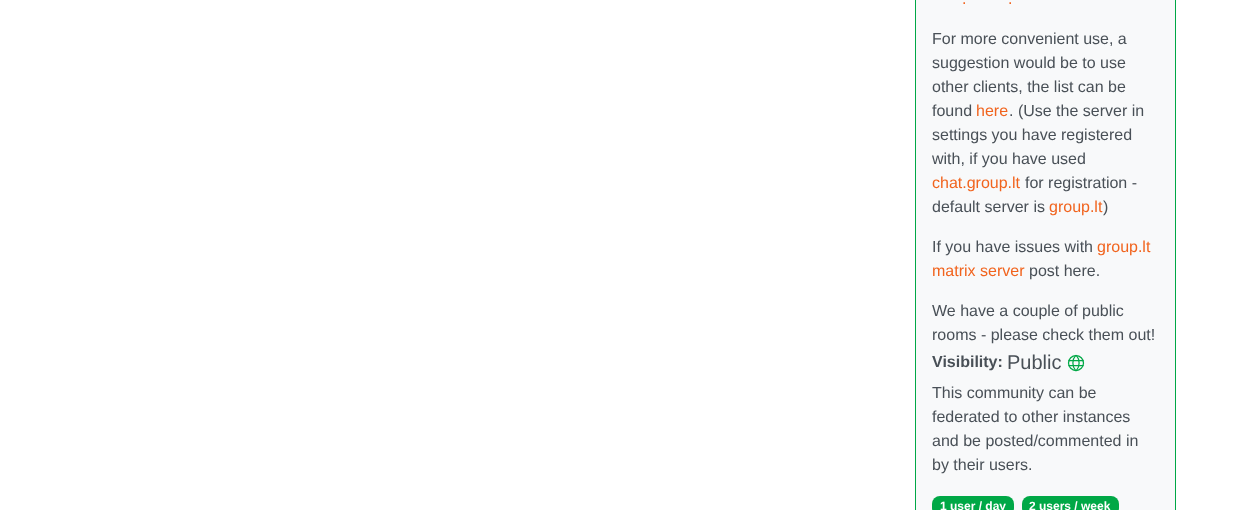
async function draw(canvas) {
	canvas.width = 1236;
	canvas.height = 510;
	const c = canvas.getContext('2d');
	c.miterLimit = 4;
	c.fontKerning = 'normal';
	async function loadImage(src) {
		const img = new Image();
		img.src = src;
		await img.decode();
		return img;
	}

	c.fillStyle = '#fff';
	c.fillRect(0, 0, 1236, 510);
	c.fillStyle = '#f8f9fa';
	c.beginPath();
	c.rect(915.5, -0.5, 260, 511);
	c.fill();
	c.strokeStyle = '#00a846';
	c.stroke();
	c.font = '16px Liberation Sans';
	c.fillStyle = '#f1641e';
	c.fillText('.', 962, 4);
	c.fillText('.', 1008, 4);
	c.fillStyle = '#495057';
	for (const [text, x, y] of [
		['For more convenient use, a', 932, 44],
		['suggestion would be to use', 932, 68],
		['other clients, the list can be', 932, 92],
		['found', 932, 116],
	]) {
		c.fillText(text, x, y);
	}
	c.fillStyle = '#f1641e';
	c.fillText('here', 976, 116);
	c.fillStyle = '#495057';
	for (const [text, x, y] of [
		['. (Use the server in', 1009, 116],
		['settings you have registered', 932, 140],
		['with, if you have used', 932, 164],
	]) {
		c.fillText(text, x, y);
	}
	c.fillStyle = '#f1641e';
	c.fillText('chat.group.lt', 932, 188);
	c.fillStyle = '#495057';
	c.fillText('for registration -', 1025, 188);
	c.fillText('default server is', 932, 212);
	c.fillStyle = '#f1641e';
	c.fillText('group.lt', 1049, 212);
	c.fillStyle = '#495057';
	c.fillText(')', 1103, 212);
	c.fillText('If you have issues with', 932, 252);
	c.fillStyle = '#f1641e';
	c.fillText('group.lt', 1097, 252);
	c.fillText('matrix server', 932, 276);
	c.fillStyle = '#495057';
	for (const [text, x, y] of [
		['post here.', 1029, 276],
		['We have a couple of public', 932, 316],
		['rooms - please check them out!', 932, 340],
	]) {
		c.fillText(text, x, y);
	}
	c.font = 'bold 16px Liberation Sans';
	c.fillText('Visibility:', 932, 367);
	c.font = '20px Liberation Sans';
	c.fillText('Public', 1007, 369);
	c.drawImage(await loadImage('img1.png'), 1067, 354, 18, 18);
	c.font = '16px Liberation Sans';
	for (const [text, x, y] of [
		['This community can be', 932, 398],
		['federated to other instances', 932, 422],
		['and be posted/commented in', 932, 446],
		['by their users.', 932, 470],
	]) {
		c.fillText(text, x, y);
	}
	c.fillStyle = '#00a846';
	c.beginPath();
	c.roundRect(932, 496, 82, 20, 8);
	c.fill();
	c.font = 'bold 12px Liberation Sans';
	c.fillStyle = '#fff';
	c.fillText('1 user / day', 940, 510);
	c.fillStyle = '#00a846';
	c.beginPath();
	c.roundRect(1022, 496, 97, 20, 8);
	c.fill();
	c.fillStyle = '#fff';
	c.fillText('2 users / week', 1029, 510);
}

draw(document.querySelector('canvas'));
